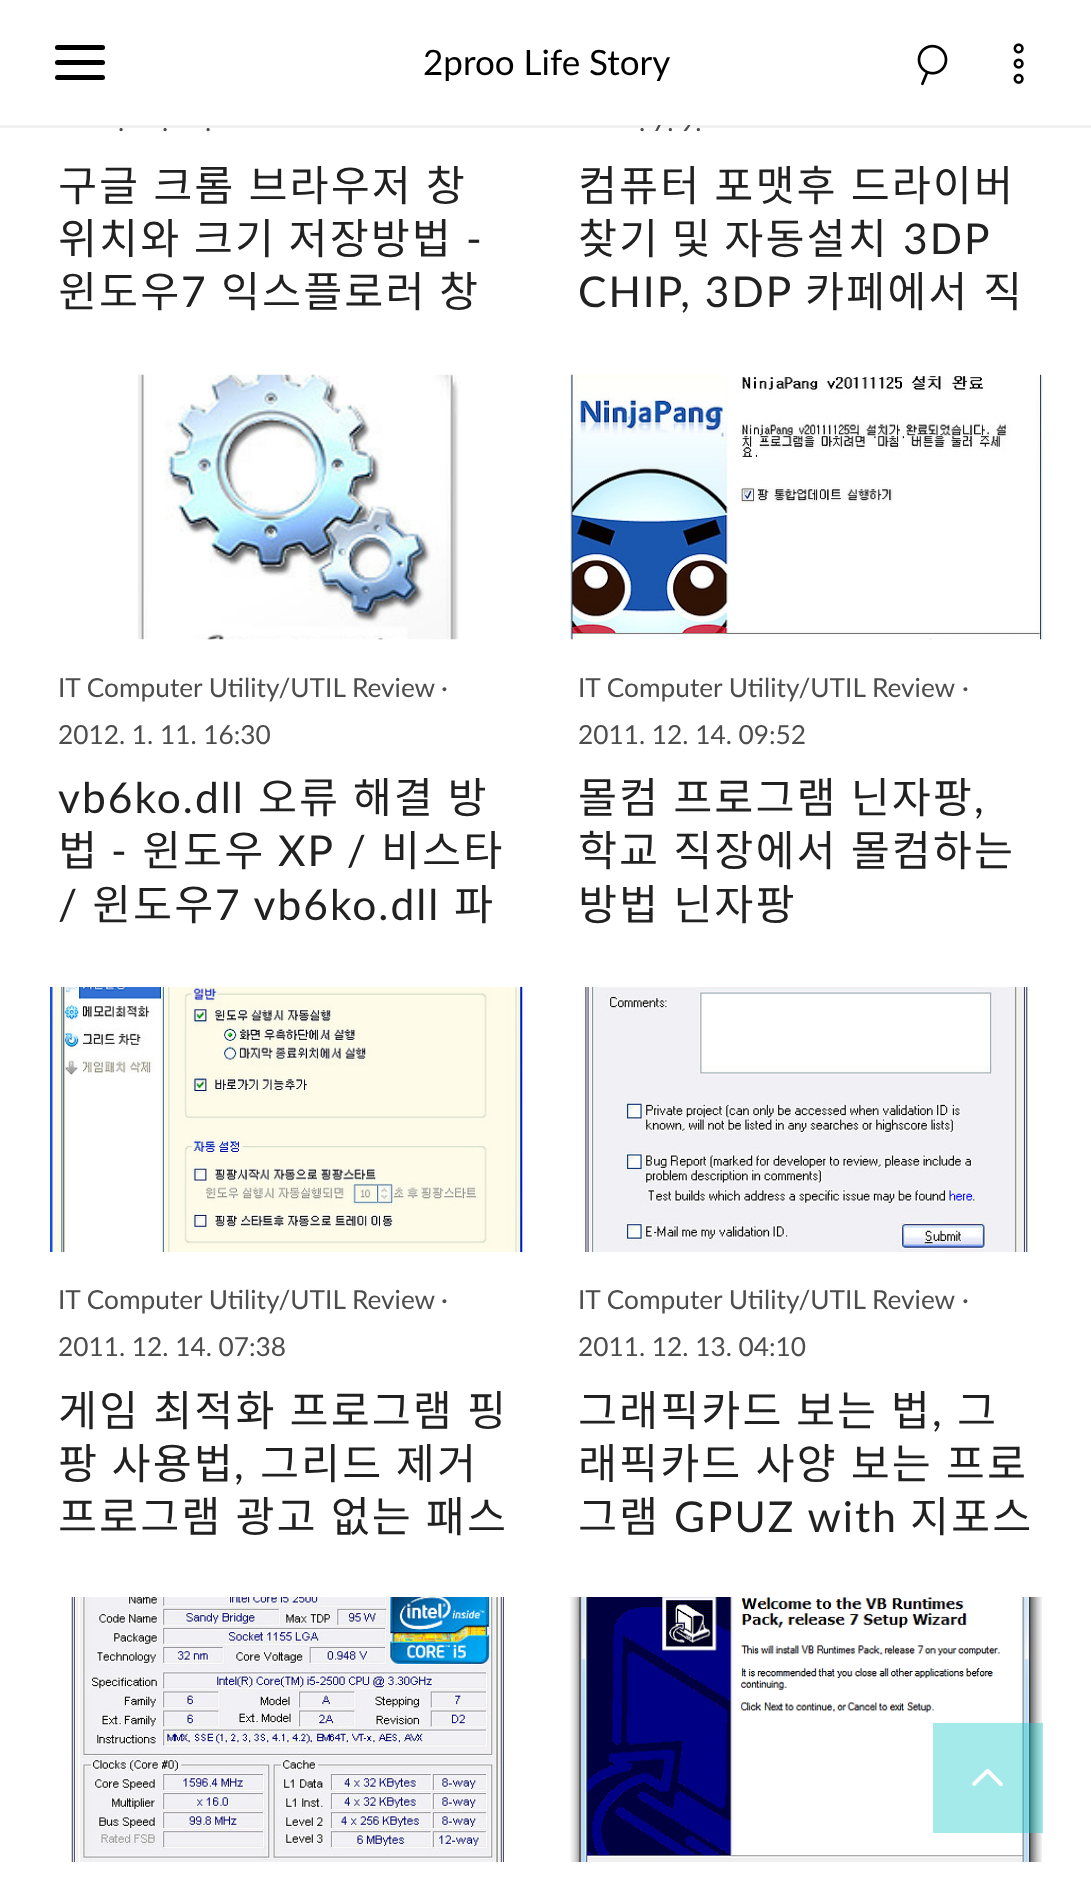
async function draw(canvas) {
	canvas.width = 1091;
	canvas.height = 1882;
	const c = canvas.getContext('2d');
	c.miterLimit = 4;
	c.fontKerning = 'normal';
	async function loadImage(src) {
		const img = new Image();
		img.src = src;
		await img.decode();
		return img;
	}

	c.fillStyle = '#fff';
	c.fillRect(0, 0, 1091, 1882);
	c.fillStyle = '#0000000d';
	c.beginPath();
	c.moveTo(0, 125);
	c.lineTo(0, 128);
	c.lineTo(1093, 128);
	c.lineTo(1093, 3);
	c.lineTo(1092, 3);
	c.lineTo(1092, 125);
	c.closePath();
	c.fill();
	c.font = '26.25px Lato';
	c.fillStyle = '#4d4d4d';
	c.fillText('. 7. 9.', 639, 131);
	c.fillStyle = '#fff';
	c.fillRect(653, 112, 41, 13);
	c.fillStyle = '#000';
	c.beginPath();
	c.roundRect(55, 45, 50, 5, 2.5);
	c.fill();
	c.beginPath();
	c.roundRect(55, 60, 50, 5, 2.5);
	c.fill();
	c.beginPath();
	c.roundRect(55, 75, 50, 5, 2.5);
	c.fill();
	c.font = '35px Lato';
	c.fillText('2proo Life Story', 423, 75);
	c.drawImage(await loadImage('img1.png'), 917, 44, 31, 42);
	c.drawImage(await loadImage('img2.png'), 1013, 43, 11, 41);
	c.font = '26.25px Lato';
	c.fillStyle = '#4d4d4d';
	for (const [text, x, y] of [
		['.', 118, 131],
		['.', 162, 131],
		['.', 205, 131],
	]) {
		c.fillText(text, x, y);
	}
	c.letterSpacing = '2px';
	c.wordSpacing = '1.5px';
	c.font = '42.5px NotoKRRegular';
	c.fillStyle = '#212121';
	c.fillText('구글 크롬 브라우저 창', 58, 201);
	c.wordSpacing = '1px';
	c.fillText('위치와 크기 저장방법', 58, 254);
	c.wordSpacing = '0px';
	c.font = '42.5px Lato';
	c.fillText('-', 466, 254);
	c.font = '42.5px NotoKRRegular';
	c.fillText('윈도우', 58, 307);
	c.font = '42.5px Lato';
	c.fillText('7', 181, 307);
	c.wordSpacing = '1px';
	c.font = '42.5px NotoKRRegular';
	c.fillText('익스플로러 창', 221, 307);
	c.wordSpacing = '1.5px';
	c.fillText('컴퓨터 포맷후 드라이버', 578, 201);
	c.wordSpacing = '0px';
	c.fillText('찾기 및 자동설치', 578, 254);
	c.font = '42.5px Lato';
	c.fillText('3DP', 903, 254);
	c.fillText('CHIP, 3DP', 578, 307);
	c.font = '42.5px NotoKRRegular';
	c.fillText('카페에서', 805, 307);
	c.fillText('직', 983, 307);
	c.drawImage(await loadImage('img3.png'), 137, 374, 324, 266);
	c.letterSpacing = '0px';
	c.font = '26.25px Lato';
	c.fillStyle = '#4d4d4d';
	for (const [text, x, y] of [
		['IT Computer Utility/UTIL Review', 58, 697],
		['·', 441, 697],
		['2012. 1. 11. 16:30', 58, 744],
	]) {
		c.fillText(text, x, y);
	}
	c.letterSpacing = '2px';
	c.font = '42.5px Lato';
	c.fillStyle = '#212121';
	c.fillText('vb6ko.dll', 58, 813);
	c.wordSpacing = '1px';
	c.font = '42.5px NotoKRRegular';
	c.fillText('오류 해결 방', 258, 813);
	c.wordSpacing = '0px';
	c.fillText('법', 58, 866);
	c.font = '42.5px Lato';
	c.fillText('-', 111, 866);
	c.font = '42.5px NotoKRRegular';
	c.fillText('윈도우', 142, 866);
	c.font = '42.5px Lato';
	c.fillText('XP /', 278, 866);
	c.font = '42.5px NotoKRRegular';
	c.fillText('비스타', 381, 866);
	c.font = '42.5px Lato';
	c.fillText('/', 58, 920);
	c.font = '42.5px NotoKRRegular';
	c.fillText('윈도우', 92, 920);
	c.font = '42.5px Lato';
	c.fillText('7 vb6ko.dll', 215, 920);
	c.font = '42.5px NotoKRRegular';
	c.fillText('파', 454, 920);
	c.drawImage(await loadImage('img4.png'), 570, 374, 473, 266);
	c.letterSpacing = '0px';
	c.font = '26.25px Lato';
	c.fillStyle = '#4d4d4d';
	for (const [text, x, y] of [
		['IT Computer Utility/UTIL Review', 578, 697],
		['·', 962, 697],
		['2011. 12. 14. 09:52', 578, 744],
	]) {
		c.fillText(text, x, y);
	}
	c.letterSpacing = '2px';
	c.wordSpacing = '1.5px';
	c.font = '42.5px NotoKRRegular';
	c.fillStyle = '#212121';
	c.fillText('몰컴 프로그램 닌자팡', 578, 813);
	c.wordSpacing = '0px';
	c.font = '42.5px Lato';
	c.fillText(',', 974, 813);
	c.wordSpacing = '1.5px';
	c.font = '42.5px NotoKRRegular';
	c.fillText('학교 직장에서 몰컴하는', 578, 866);
	c.fillText('방법 닌자팡', 578, 920);
	c.drawImage(await loadImage('img5.png'), 50, 987, 473, 265);
	c.letterSpacing = '0px';
	c.wordSpacing = '0px';
	c.font = '26.25px Lato';
	c.fillStyle = '#4d4d4d';
	for (const [text, x, y] of [
		['IT Computer Utility/UTIL Review', 58, 1309],
		['·', 441, 1309],
		['2011. 12. 14. 07:38', 58, 1356],
	]) {
		c.fillText(text, x, y);
	}
	c.letterSpacing = '2px';
	c.wordSpacing = '1.5px';
	c.font = '42.5px NotoKRRegular';
	c.fillStyle = '#212121';
	c.fillText('게임 최적화 프로그램 핑', 58, 1426);
	c.wordSpacing = '1px';
	c.fillText('팡 사용법', 58, 1479);
	c.wordSpacing = '0px';
	c.font = '42.5px Lato';
	c.fillText(',', 234, 1479);
	c.wordSpacing = '1px';
	c.font = '42.5px NotoKRRegular';
	c.fillText('그리드 제거', 260, 1479);
	c.wordSpacing = '1.5px';
	c.fillText('프로그램 광고 없는 패스', 58, 1532);
	c.drawImage(await loadImage('img6.png'), 582, 987, 446, 265);
	c.letterSpacing = '0px';
	c.wordSpacing = '0px';
	c.font = '26.25px Lato';
	c.fillStyle = '#4d4d4d';
	for (const [text, x, y] of [
		['IT Computer Utility/UTIL Review', 578, 1309],
		['·', 962, 1309],
		['2011. 12. 13. 04:10', 578, 1356],
	]) {
		c.fillText(text, x, y);
	}
	c.letterSpacing = '2px';
	c.wordSpacing = '1px';
	c.font = '42.5px NotoKRRegular';
	c.fillStyle = '#212121';
	c.fillText('그래픽카드 보는 법', 578, 1426);
	c.wordSpacing = '0px';
	c.fillText('그', 957, 1426);
	c.font = '42.5px Lato';
	c.fillText(',', 932, 1426);
	c.wordSpacing = '1.5px';
	c.font = '42.5px NotoKRRegular';
	c.fillText('래픽카드 사양 보는 프로', 578, 1479);
	c.wordSpacing = '0px';
	c.fillText('그램', 578, 1532);
	c.font = '42.5px Lato';
	c.fillText('GPUZ with', 674, 1532);
	c.font = '42.5px NotoKRRegular';
	c.fillText('지포스', 910, 1532);
	c.drawImage(await loadImage('img7.png'), 71, 1597, 433, 265);
	c.drawImage(await loadImage('img8.png'), 570, 1597, 472, 265);
	c.fillStyle = '#1ccacd66';
	c.fillRect(933, 1723, 110, 110);
	c.drawImage(await loadImage('img9.png'), 972, 1768, 31, 19);
}

draw(document.querySelector('canvas'));
